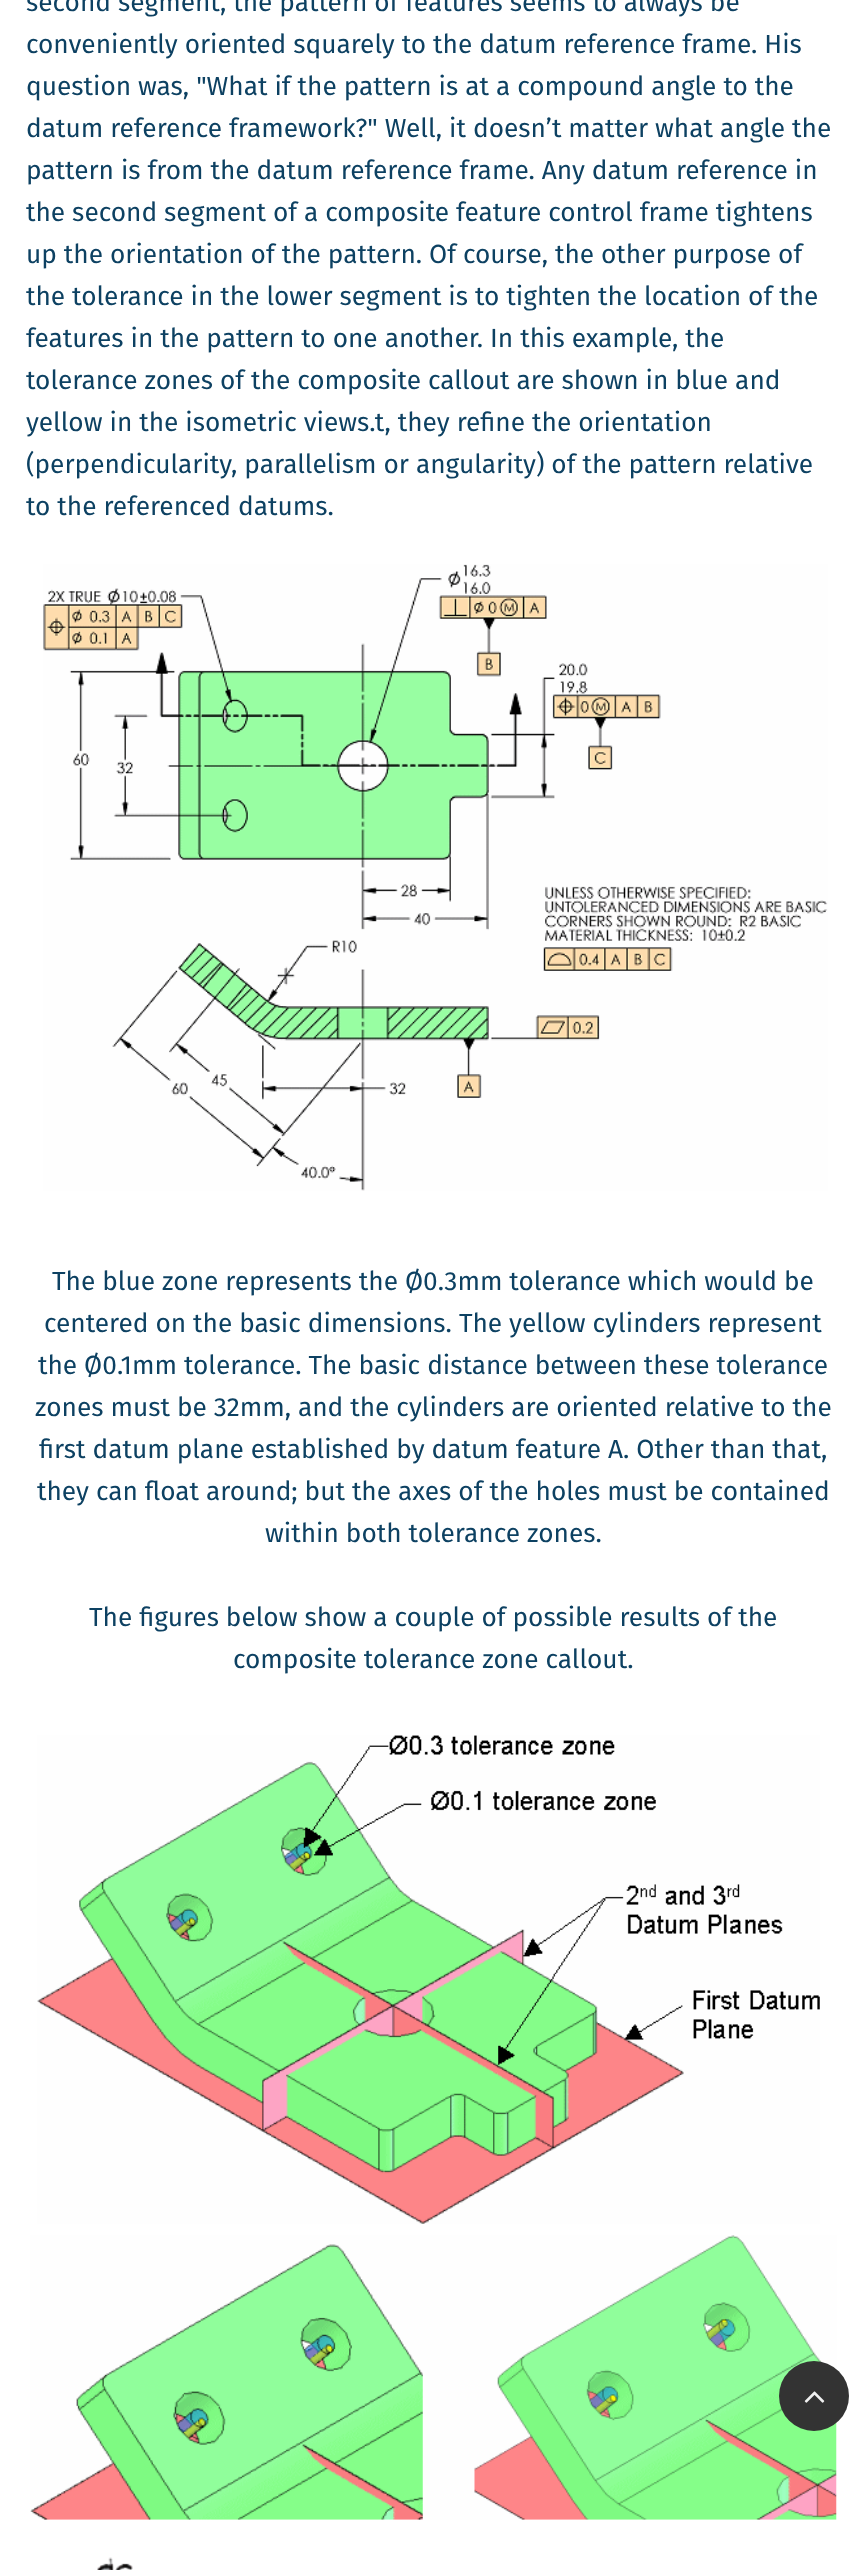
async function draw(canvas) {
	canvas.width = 866;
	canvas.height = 2570;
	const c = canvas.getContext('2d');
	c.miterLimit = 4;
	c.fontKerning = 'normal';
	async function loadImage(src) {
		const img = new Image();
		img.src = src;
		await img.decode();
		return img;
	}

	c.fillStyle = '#fff';
	c.fillRect(0, 0, 866, 2570);
	c.font = '26.25px Fira Sans';
	c.fillStyle = '#0d4162';
	for (const [text, x, y] of [
		['second segment, the pattern of features seems to always be', 26, 11],
		['conveniently oriented squarely to the datum reference frame. His', 26, 53],
		['question was, "What if the pattern is at a compound angle to the', 26, 95],
		['datum reference framework?" Well, it doesn’t matter what angle the', 26, 137],
		['pattern is from the datum reference frame. Any datum reference in', 26, 179],
		['the second segment of a composite feature control frame tightens', 26, 221],
		['up the orientation of the pattern. Of course, the other purpose of', 26, 263],
		['the tolerance in the lower segment is to tighten the location of the', 26, 305],
		['features in the pattern to one another. In this example, the', 26, 347],
		['tolerance zones of the composite callout are shown in blue and', 26, 389],
		['yellow in the isometric views.t, they refine the orientation', 26, 431],
		['(perpendicularity, parallelism or angularity) of the pattern relative', 26, 473],
		['to the referenced datums.', 26, 515],
	]) {
		c.fillText(text, x, y);
	}
	c.drawImage(await loadImage('img1.png'), 43, 564, 785, 627);
	for (const [text, x, y] of [
		['The blue zone represents the Ø0.3mm tolerance which would be', 52, 1290],
		['centered on the basic dimensions. The yellow cylinders represent', 44, 1332],
		['the Ø0.1mm tolerance. The basic distance between these tolerance', 38, 1374],
		['zones must be 32mm, and the cylinders are oriented relative to the', 35, 1416],
		['first datum plane established by datum feature A. Other than that,', 39, 1458],
		['they can float around; but the axes of the holes must be contained', 37, 1500],
		['within both tolerance zones.', 265, 1542],
		['The figures below show a couple of possible results of the', 89, 1626],
		['composite tolerance zone callout.', 233, 1668],
	]) {
		c.fillText(text, x, y);
	}
	c.drawImage(await loadImage('img2.png'), 37, 1735, 783, 489);
	c.drawImage(await loadImage('img3.png'), 30, 2235, 807, 285);
	c.drawImage(await loadImage('img4.png'), 97, 2557, 36, 13);
	c.fillStyle = '#333';
	c.beginPath();
	c.arc(814, 2396, 35, 0, 2 * Math.PI);
	c.fill();
	c.drawImage(await loadImage('img5.png'), 804, 2391, 21, 12);
}

draw(document.querySelector('canvas'));
